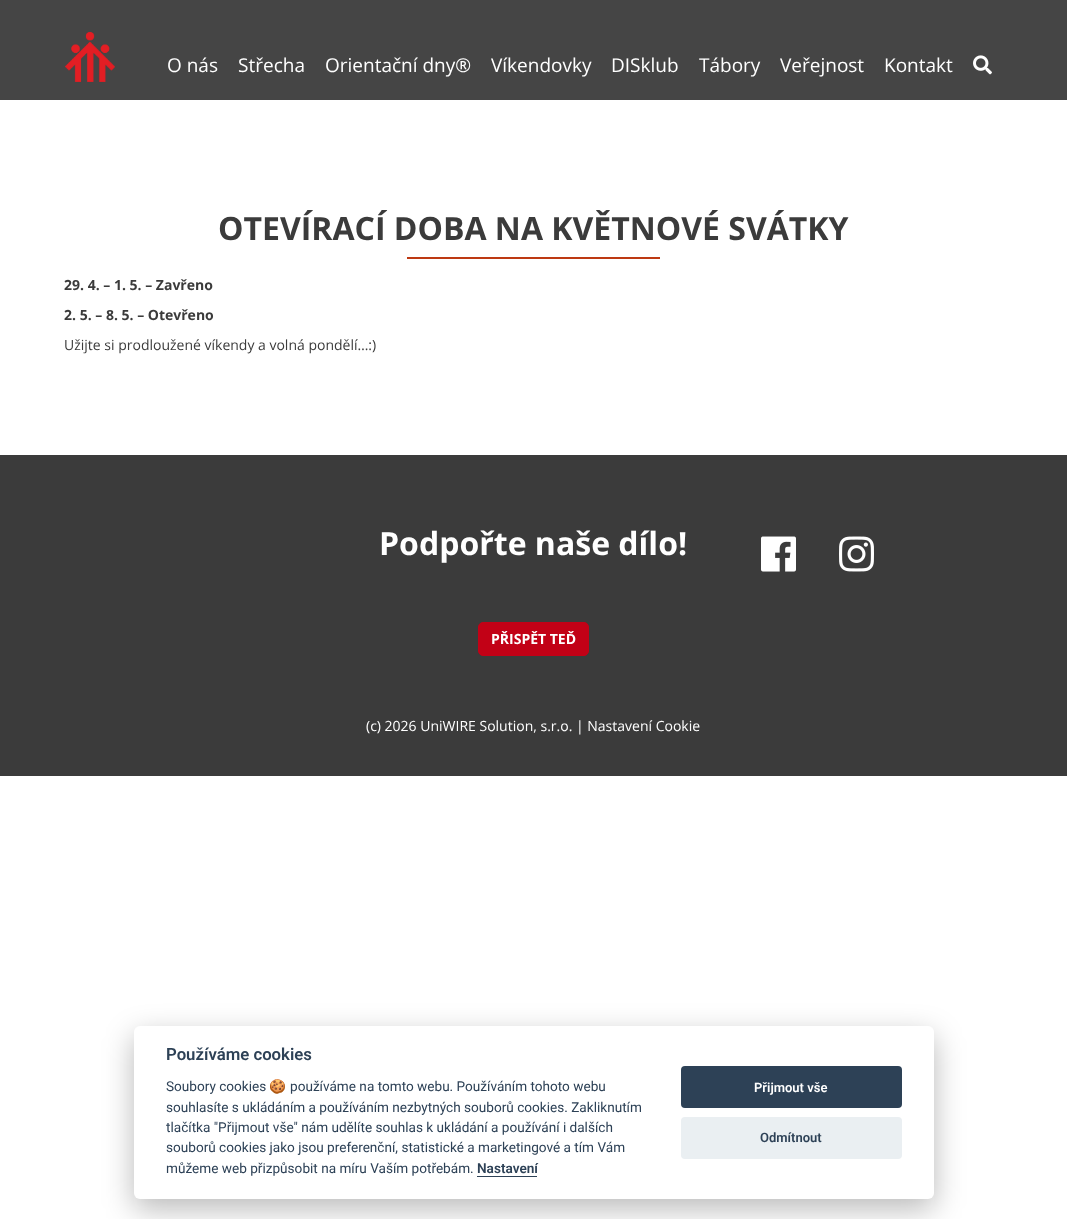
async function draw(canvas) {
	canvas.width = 1067;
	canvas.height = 1219;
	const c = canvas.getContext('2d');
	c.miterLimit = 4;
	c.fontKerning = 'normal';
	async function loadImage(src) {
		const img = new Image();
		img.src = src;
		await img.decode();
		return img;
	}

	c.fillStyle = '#fff';
	c.fillRect(0, 0, 1067, 1219);
	c.fillStyle = '#454545';
	c.fillRect(0, 0, 1067, 100);
	c.drawImage(await loadImage('img1.png'), 65, 32, 50, 50);
	c.font = '19px Open Sans';
	c.fillStyle = '#fff';
	for (const [text, x, y] of [
		['O nás', 167, 72],
		['Střecha', 238, 72],
		['Orientační dny®', 325, 72],
		['Víkendovky', 491, 72],
		['DISklub', 611, 72],
		['Tábory', 699, 72],
		['Veřejnost', 780, 72],
		['Kontakt', 884, 72],
	]) {
		c.fillText(text, x, y);
	}
	c.drawImage(await loadImage('img2.png'), 973, 55, 19, 20);
	c.font = 'bold 32px Open Sans';
	c.fillStyle = '#3b3b3b';
	c.fillText('OTEVÍRACÍ DOBA NA KVĚTNOVÉ SVÁTKY', 218, 240);
	c.fillStyle = '#bd3912';
	c.fillRect(407, 257, 253, 2);
	c.font = 'bold 14px Open Sans';
	c.fillStyle = '#3b3b3b';
	c.fillText('29. 4. – 1. 5. – Zavřeno', 64, 290);
	c.fillText('2. 5. – 8. 5. – Otevřeno', 64, 320);
	c.font = '14px Open Sans';
	c.fillText('Užijte si prodloužené víkendy a volná pondělí…:)', 64, 350);
	c.fillRect(0, 455, 1067, 321);
	c.font = 'bold 32px Open Sans';
	c.fillStyle = '#fff';
	c.fillText('Podpořte naše dílo!', 379, 555);
	c.drawImage(await loadImage('img3.png'), 761, 536, 35, 36);
	c.drawImage(await loadImage('img4.png'), 839, 536, 35, 36);
	c.fillStyle = '#c20116';
	c.beginPath();
	c.roundRect(478.5, 622.5, 110, 33, 4.5);
	c.fill();
	c.strokeStyle = '#c20116';
	c.stroke();
	c.font = 'bold 14px Open Sans';
	c.fillStyle = '#fff';
	c.fillText('PŘISPĚT TEĎ', 491, 644);
	c.font = '14px Open Sans';
	c.fillText('(c) 2026 UniWIRE Solution, s.r.o. | Nastavení Cookie', 366, 731);
	c.fillStyle = '#02020347';
	c.filter = 'blur(15px)';
	c.beginPath();
	c.roundRect(134, 1036, 800, 173, 6);
	c.fill();
	c.filter = 'none';
	c.fillStyle = '#fff';
	c.beginPath();
	c.roundRect(134, 1026, 800, 173, 6);
	c.fill();
	c.font = '600 16.75px Roboto';
	c.fillStyle = '#2d4156';
	c.fillText('Používáme cookies', 166, 1060);
	c.font = '13.6px Roboto';
	c.fillText('Soubory cookies', 166, 1091);
	c.font = '13.6px Noto Color Emoji';
	c.fillText('🍪', 269, 1091);
	c.font = '13.6px Roboto';
	for (const [text, x, y] of [
		['používáme na tomto webu. Používáním tohoto webu', 290, 1091],
		['souhlasíte s ukládáním a používáním nezbytných souborů cookies. Zakliknutím', 166, 1112],
		['tlačítka "Přijmout vše" nám udělíte souhlas k ukládání a používání i dalších', 166, 1132],
		['souborů cookies jako jsou preferenční, statistické a marketingové a tím Vám', 166, 1152],
		['můžeme web přizpůsobit na míru Vaším potřebám.', 166, 1173],
	]) {
		c.fillText(text, x, y);
	}
	c.font = '600 13.6px Roboto';
	c.fillText('Nastavení', 477, 1173);
	c.fillRect(477, 1176, 60, 1);
	c.beginPath();
	c.roundRect(681, 1066, 221, 42, 4);
	c.fill();
	c.font = '600 13px Roboto';
	c.fillStyle = '#fff';
	c.fillText('Přijmout vše', 754, 1092);
	c.fillStyle = '#eaeff2';
	c.beginPath();
	c.roundRect(681, 1117, 221, 42, 4);
	c.fill();
	c.fillStyle = '#2d4156';
	c.fillText('Odmítnout', 760, 1142);
}

draw(document.querySelector('canvas'));
